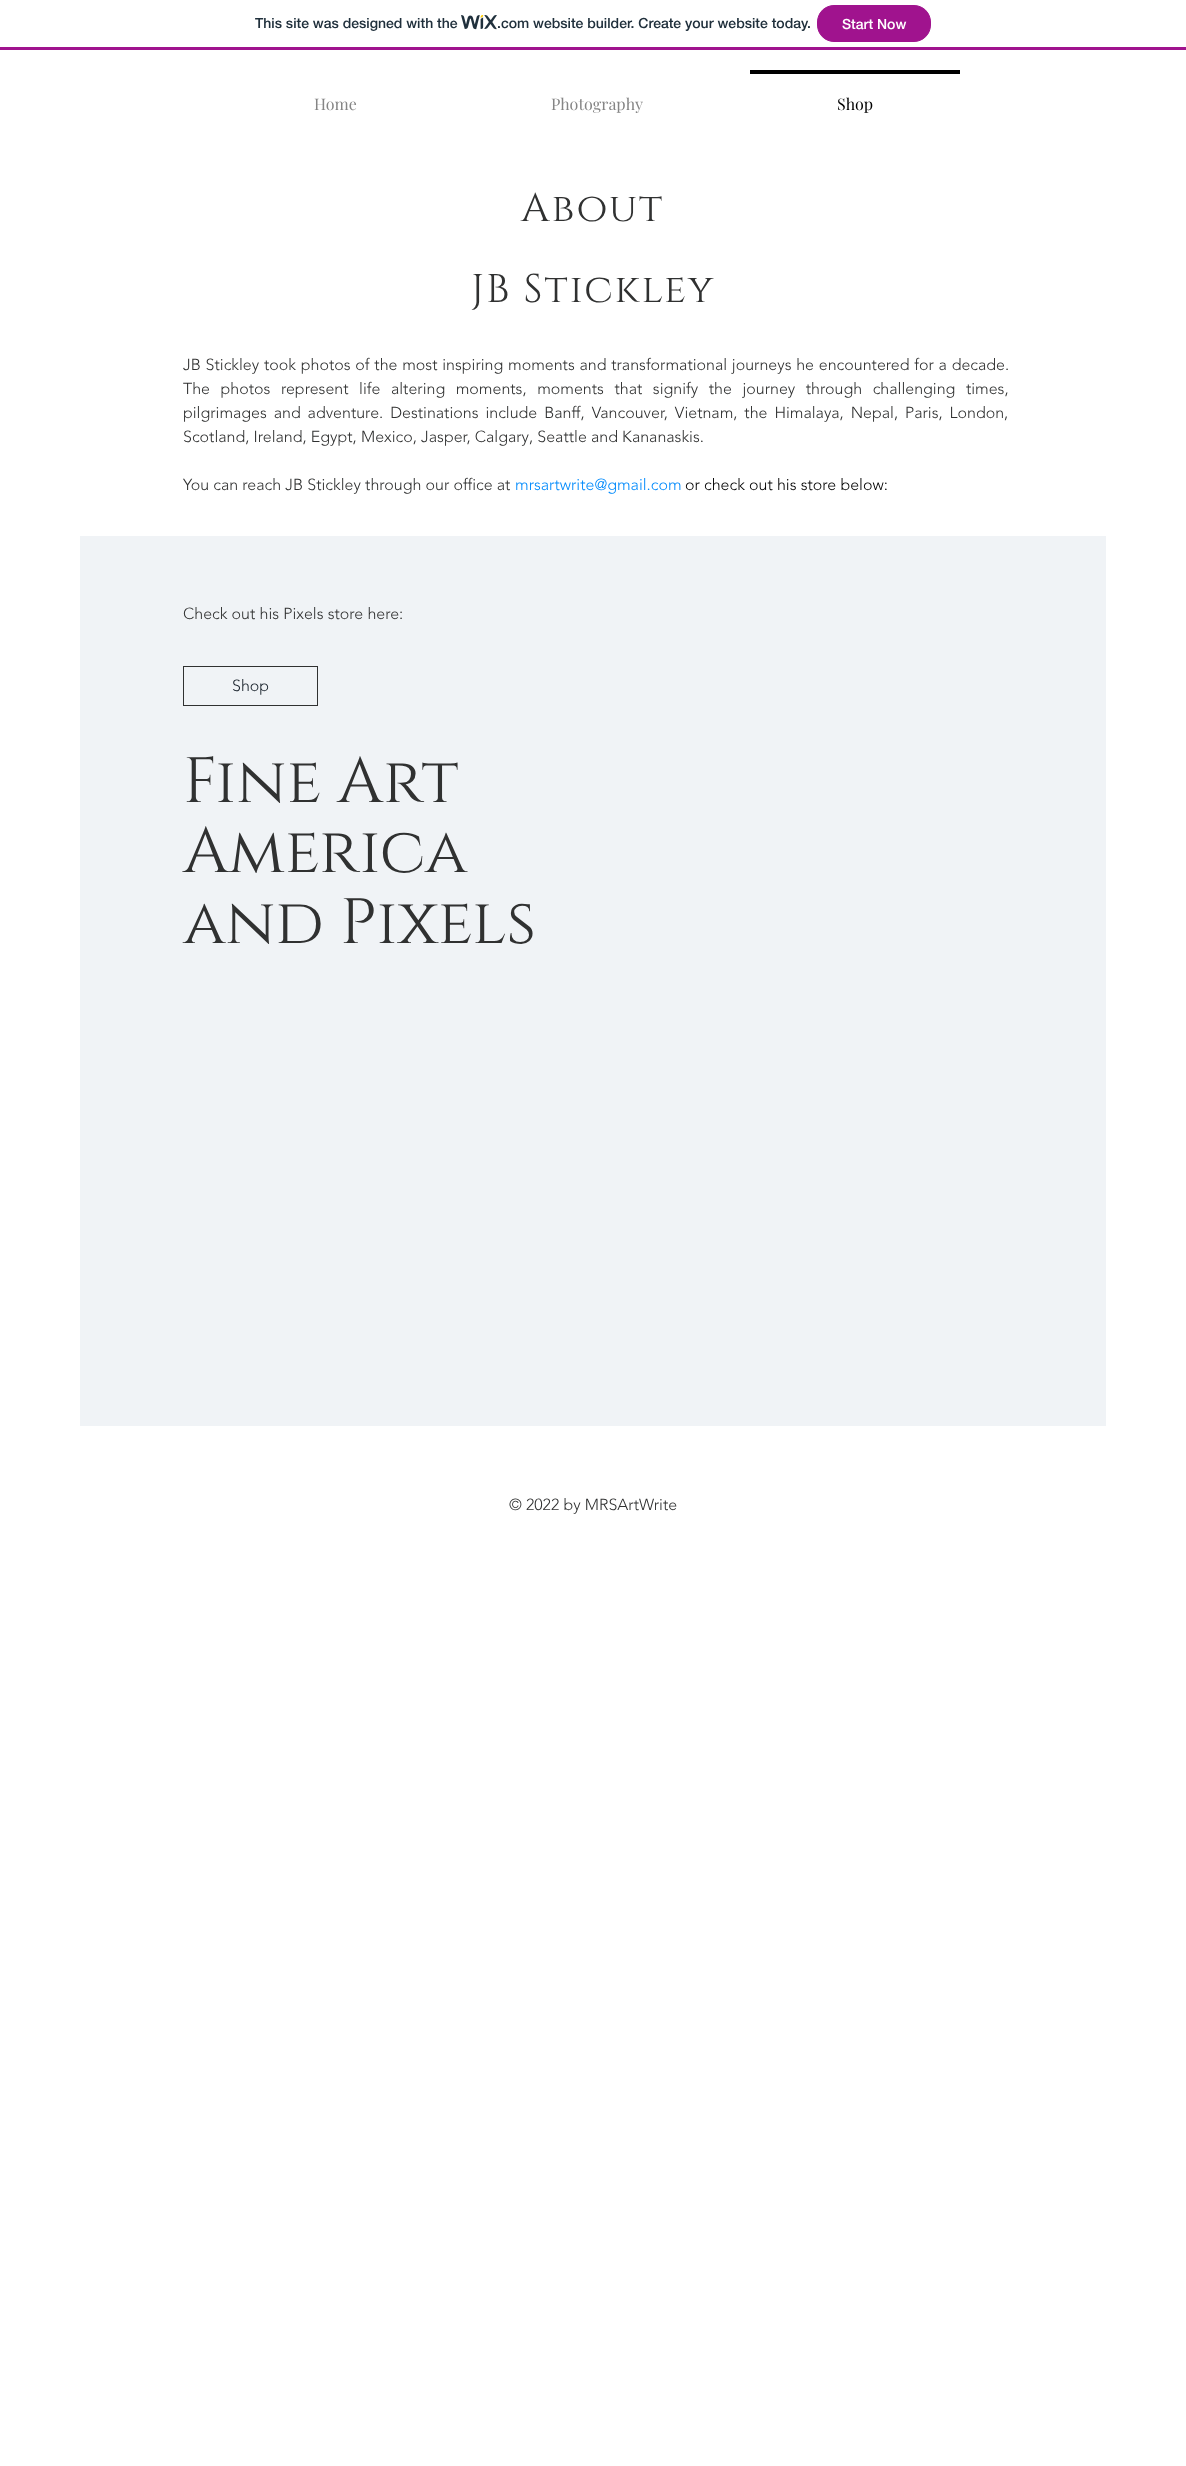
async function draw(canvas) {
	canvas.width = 1186;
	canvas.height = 2466;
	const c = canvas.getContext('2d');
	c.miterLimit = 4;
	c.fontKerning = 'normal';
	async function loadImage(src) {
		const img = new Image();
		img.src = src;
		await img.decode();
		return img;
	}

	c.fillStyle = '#fff';
	c.fillRect(0, 0, 1186, 2466);
	c.fillStyle = '#a0138e';
	c.fillRect(0, 47, 1186, 3);
	c.font = '500 14px "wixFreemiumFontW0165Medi"';
	c.fillStyle = '#20303c';
	c.fillText('This site was designed with the', 255, 28);
	c.drawImage(await loadImage('img1.png'), 461, 15, 36, 15);
	c.fillText('.com website builder. Create your website today.', 497, 28);
	c.fillStyle = '#a0138e';
	c.beginPath();
	c.roundRect(817.5, 5.5, 113, 36, 16.5);
	c.fill();
	c.strokeStyle = '#a0138e';
	c.stroke();
	c.fillStyle = '#fff';
	c.fillText('Start Now', 842, 29);
	c.font = '16px Playfair Display';
	c.fillStyle = '#858585';
	c.fillText('Home', 314, 110);
	c.fillText('Photography', 551, 110);
	c.fillStyle = '#000';
	c.fillRect(750, 70, 210, 4);
	c.fillText('Shop', 837, 110);
	c.letterSpacing = '2px';
	c.font = '40px Cinzel';
	c.fillStyle = '#303131';
	c.fillText('About', 521, 221);
	c.fillText('JB Stickley', 471, 302);
	c.letterSpacing = '0px';
	c.wordSpacing = '0.6px';
	c.font = '300 16px "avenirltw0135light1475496"';
	c.fillText('JB Stickley took photos of the most inspiring moments and transformational journeys he encountered for a decade.', 183, 370);
	c.wordSpacing = '6.4px';
	c.fillText('The photos represent life altering moments, moments that signify the journey through challenging times,', 183, 394);
	c.wordSpacing = '2.75px';
	c.fillText('pilgrimages and adventure. Destinations include Banff, Vancouver, Vietnam, the Himalaya, Nepal, Paris, London,', 183, 418);
	c.wordSpacing = '0px';
	c.fillText('Scotland, Ireland, Egypt, Mexico, Jasper, Calgary, Seattle and Kananaskis.', 183, 442);
	c.fillText('You can reach JB Stickley through our office at', 183, 490);
	c.fillStyle = '#008afc';
	c.fillText('mrsartwrite@gmail.com', 515, 490);
	c.fillStyle = '#000';
	c.fillText('or check out his store below:', 685, 490);
	c.fillStyle = '#f0f3f6';
	c.fillRect(80, 536, 1026, 890);
	c.fillStyle = '#303131';
	c.fillText('Check out his Pixels store here:', 183, 619);
	c.strokeStyle = '#303131';
	c.strokeRect(183.5, 666.5, 134, 39);
	c.fillStyle = '#141d27';
	c.fillText('Shop', 232, 691);
	c.font = '64px Cinzel';
	c.fillStyle = '#303131';
	for (const [text, x, y] of [
		['Fine Art', 183, 802],
		['America', 183, 872],
		['and Pixels', 183, 943],
	]) {
		c.fillText(text, x, y);
	}
	c.font = '300 16px "avenirltw0135light1475496"';
	c.fillText('© 2022 by MRSArtWrite', 509, 1510);
}

draw(document.querySelector('canvas'));
